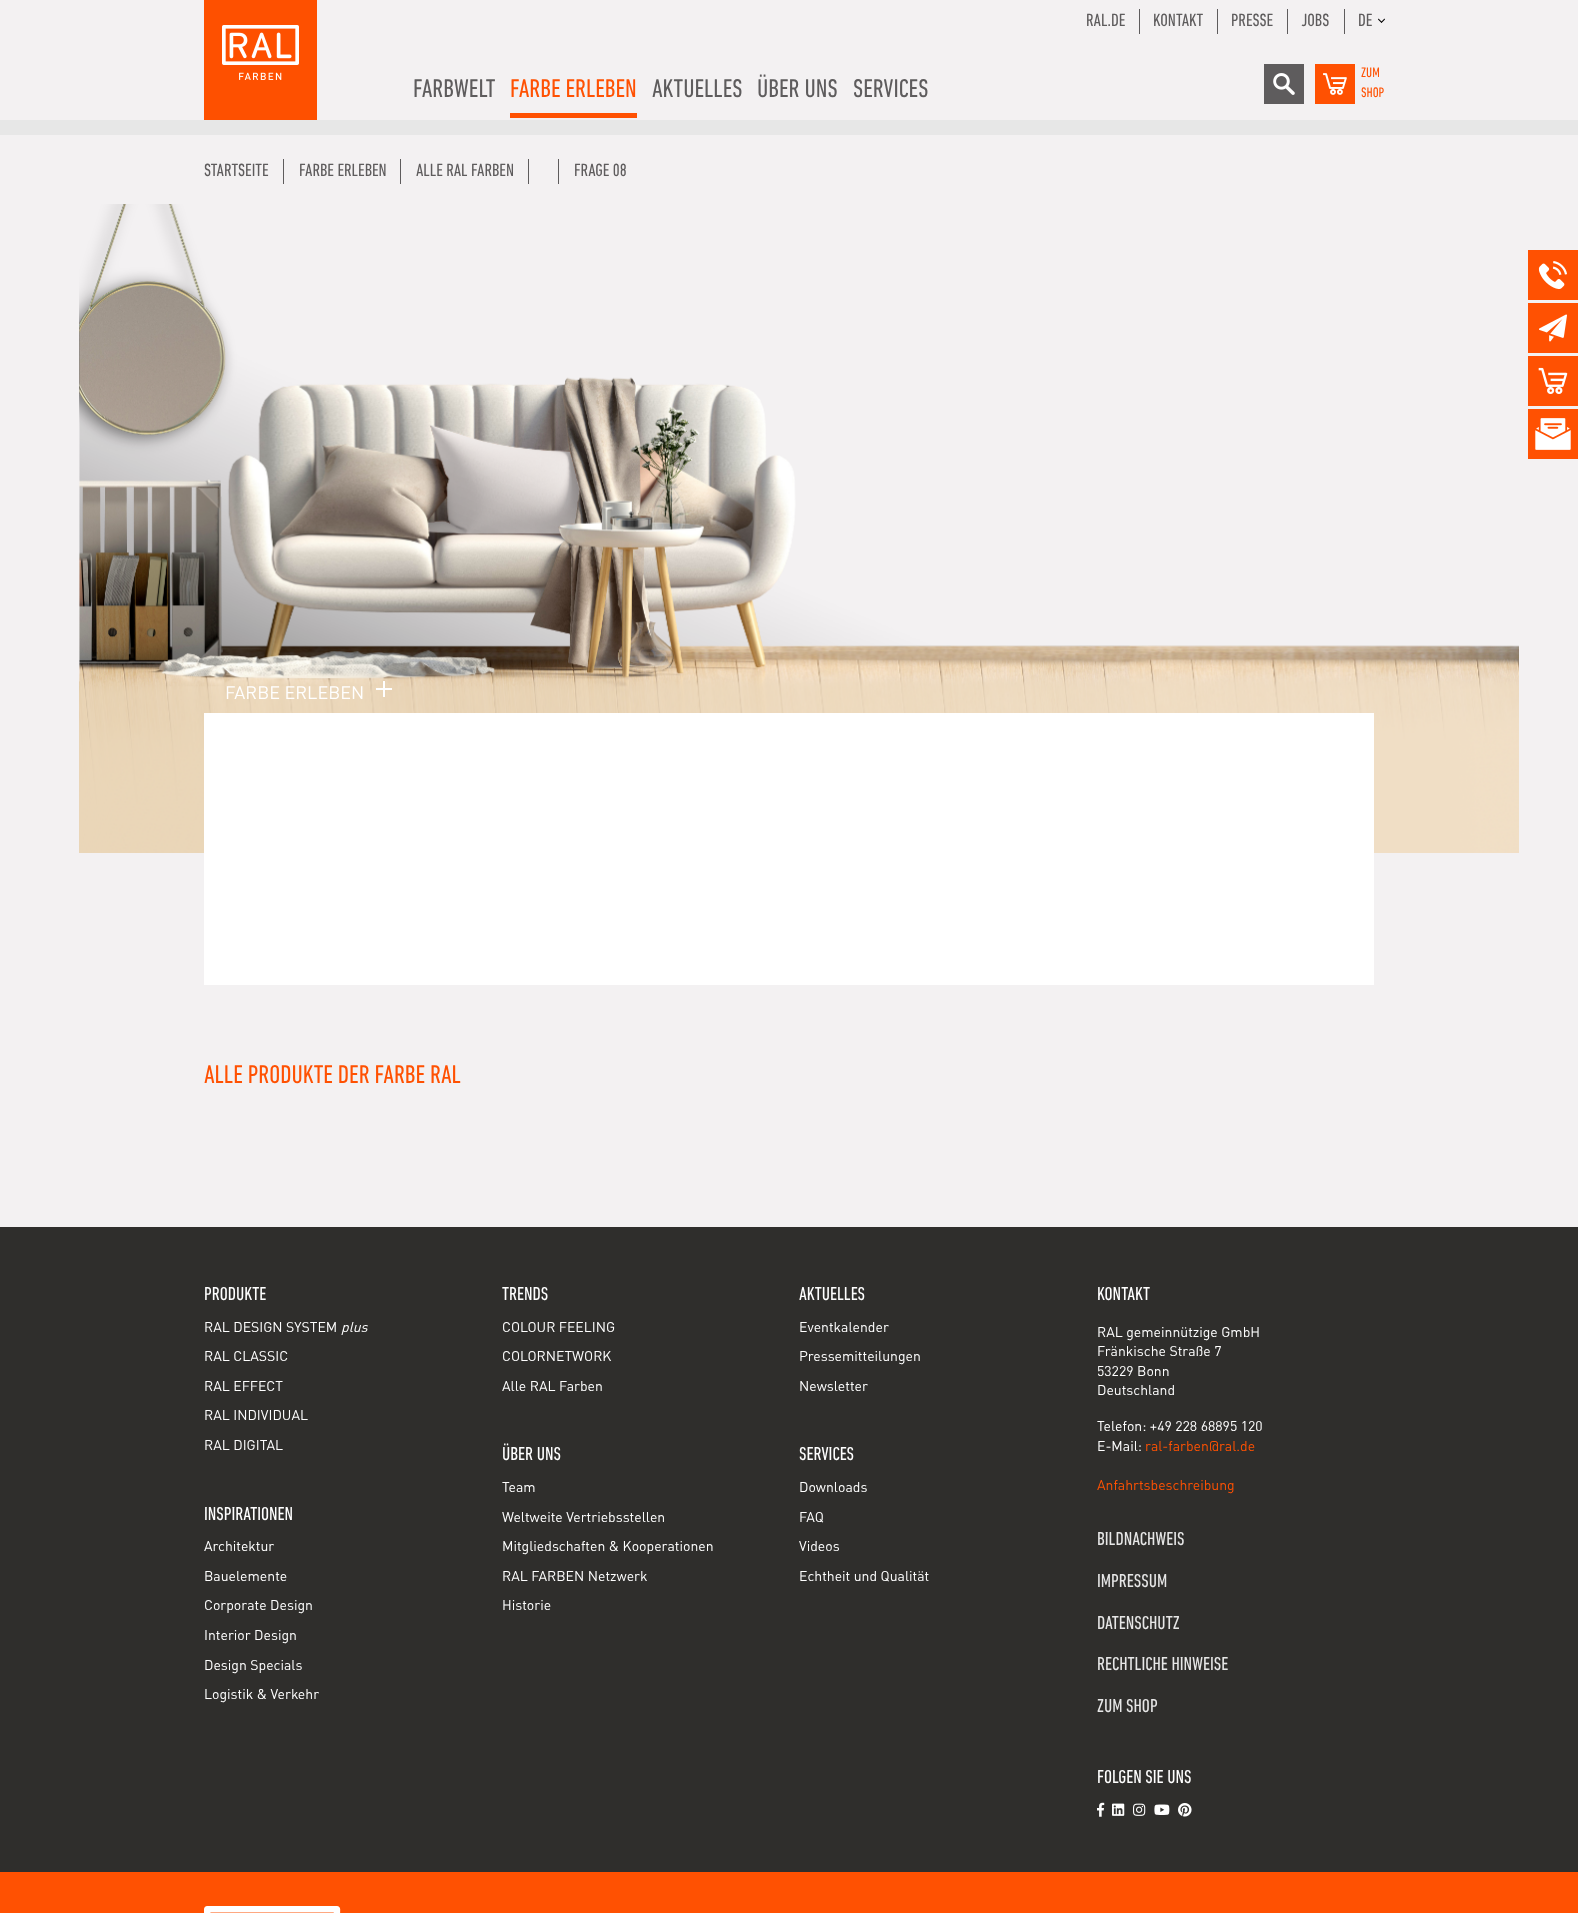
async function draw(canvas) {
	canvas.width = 1578;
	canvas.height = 1913;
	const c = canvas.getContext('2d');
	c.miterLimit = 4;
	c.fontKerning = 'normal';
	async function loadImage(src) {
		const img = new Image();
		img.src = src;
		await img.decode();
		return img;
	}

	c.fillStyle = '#f3f1f2';
	c.fillRect(0, 0, 1578, 1913);
	c.fillStyle = '#e7e7e7';
	c.fillRect(0, 120, 1578, 15);
	c.drawImage(await loadImage('img1.png'), 204, 0, 113, 120);
	c.font = '26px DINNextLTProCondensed';
	c.fillStyle = '#5e5c5d';
	c.fillText('FARBWELT', 413, 97);
	c.fillStyle = '#ff5102';
	c.fillText('FARBE ERLEBEN', 510, 97);
	c.fillRect(510, 113, 127, 5);
	c.fillStyle = '#5e5c5d';
	for (const [text, x, y] of [
		['AKTUELLES', 652, 97],
		['ÜBER UNS', 757, 97],
		['SERVICES', 853, 97],
	]) {
		c.fillText(text, x, y);
	}
	c.font = '18px DINNextLTProCondensed';
	c.fillText('RAL.DE', 1086, 26);
	c.fillRect(1139, 9, 1, 25);
	c.fillText('KONTAKT', 1153, 26);
	c.fillRect(1217, 9, 1, 25);
	c.fillText('PRESSE', 1231, 26);
	c.fillRect(1287, 9, 1, 25);
	c.fillText('JOBS', 1301, 26);
	c.fillRect(1344, 9, 1, 25);
	c.fillText('DE', 1358, 26);
	c.fillStyle = '#000';
	c.beginPath();
	c.moveTo(1384.5, 18.5);
	c.lineTo(1385, 19.5);
	c.lineTo(1381.5, 23);
	c.lineTo(1381, 22);
	c.closePath();
	c.fill();
	c.beginPath();
	c.moveTo(1378.5, 18.5);
	c.lineTo(1382, 22);
	c.lineTo(1381.5, 23);
	c.lineTo(1378, 19.5);
	c.closePath();
	c.fill();
	c.fillStyle = '#5e5c5d';
	c.fillRect(1264, 64, 40, 40);
	c.drawImage(await loadImage('img2.png'), 1273, 73, 22, 22);
	c.fillStyle = '#ff5102';
	c.fillRect(1315, 64, 40, 40);
	c.drawImage(await loadImage('img3.png'), 1323, 73, 24, 22);
	c.font = '14px DINNextLTProCondensed';
	c.fillText('ZUM', 1361, 77);
	c.fillText('SHOP', 1361, 97);
	c.font = '18px DINNextLTProCondensed';
	c.fillStyle = '#5e5c5d';
	c.fillText('STARTSEITE', 204, 176);
	c.fillRect(283, 159, 1, 25);
	c.fillText('FARBE ERLEBEN', 299, 176);
	c.fillRect(400, 159, 1, 25);
	c.fillText('ALLE RAL FARBEN', 416, 176);
	c.fillRect(528, 159, 1, 25);
	c.fillRect(558, 159, 1, 25);
	c.fillText('FRAGE 08', 574, 176);
	c.drawImage(await loadImage('img4.png'), 79, 204, 1440, 649);
	c.fillStyle = '#fff';
	c.fillRect(204, 713, 1170, 272);
	c.font = '18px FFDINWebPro';
	c.fillText('FARBE ERLEBEN', 225, 699);
	c.fillRect(383, 681, 2, 16);
	c.fillRect(376, 688, 16, 2);
	c.font = '26px DINNextLTProCondensed';
	c.fillStyle = '#ff5102';
	c.fillText('ALLE PRODUKTE DER FARBE RAL', 204, 1083);
	c.fillRect(1528, 250, 50, 50);
	c.drawImage(await loadImage('img5.png'), 1538, 261, 29, 29);
	c.fillRect(1528, 303, 50, 50);
	c.drawImage(await loadImage('img6.png'), 1539, 314, 28, 28);
	c.fillRect(1528, 356, 50, 50);
	c.drawImage(await loadImage('img7.png'), 1538, 367, 30, 27);
	c.fillRect(1528, 409, 50, 50);
	c.drawImage(await loadImage('img8.png'), 1535, 418, 36, 32);
	c.fillStyle = '#2f2e2c';
	c.fillRect(0, 1227, 1578, 645);
	c.font = '19px DINNextLTProCondensed';
	c.fillStyle = '#fff';
	c.fillText('PRODUKTE', 204, 1300);
	c.font = '14px FFDINWebPro';
	c.fillText('RAL DESIGN SYSTEM', 204, 1332);
	c.font = 'italic 14px FFDINWebPro';
	c.fillText('plus', 341, 1332);
	c.font = '14px FFDINWebPro';
	for (const [text, x, y] of [
		['RAL CLASSIC', 204, 1361],
		['RAL EFFECT', 204, 1391],
		['RAL INDIVIDUAL', 204, 1420],
		['RAL DIGITAL', 204, 1450],
	]) {
		c.fillText(text, x, y);
	}
	c.font = '19px DINNextLTProCondensed';
	c.fillText('INSPIRATIONEN', 204, 1520);
	c.font = '14px FFDINWebPro';
	for (const [text, x, y] of [
		['Architektur', 204, 1551],
		['Bauelemente', 204, 1581],
		['Corporate Design', 204, 1610],
		['Interior Design', 204, 1640],
		['Design Specials', 204, 1670],
		['Logistik & Verkehr', 204, 1699],
	]) {
		c.fillText(text, x, y);
	}
	c.font = '19px DINNextLTProCondensed';
	c.fillText('TRENDS', 502, 1300);
	c.font = '14px FFDINWebPro';
	for (const [text, x, y] of [
		['COLOUR FEELING', 502, 1332],
		['COLORNETWORK', 502, 1361],
		['Alle RAL Farben', 502, 1391],
	]) {
		c.fillText(text, x, y);
	}
	c.font = '19px DINNextLTProCondensed';
	c.fillText('ÜBER UNS', 502, 1460);
	c.font = '14px FFDINWebPro';
	for (const [text, x, y] of [
		['Team', 502, 1492],
		['Weltweite Vertriebsstellen', 502, 1522],
		['Mitgliedschaften & Kooperationen', 502, 1551],
		['RAL FARBEN Netzwerk', 502, 1581],
		['Historie', 502, 1610],
	]) {
		c.fillText(text, x, y);
	}
	c.font = '19px DINNextLTProCondensed';
	c.fillText('AKTUELLES', 799, 1300);
	c.font = '14px FFDINWebPro';
	for (const [text, x, y] of [
		['Eventkalender', 799, 1332],
		['Pressemitteilungen', 799, 1361],
		['Newsletter', 799, 1391],
	]) {
		c.fillText(text, x, y);
	}
	c.font = '19px DINNextLTProCondensed';
	c.fillText('SERVICES', 799, 1460);
	c.font = '14px FFDINWebPro';
	for (const [text, x, y] of [
		['Downloads', 799, 1492],
		['FAQ', 799, 1522],
		['Videos', 799, 1551],
		['Echtheit und Qualität', 799, 1581],
	]) {
		c.fillText(text, x, y);
	}
	c.font = '19px DINNextLTProCondensed';
	c.fillText('KONTAKT', 1097, 1300);
	c.font = '14px FFDINWebPro';
	for (const [text, x, y] of [
		['RAL gemeinnützige GmbH', 1097, 1337],
		['Fränkische Straße 7', 1097, 1356],
		['53229 Bonn', 1097, 1376],
		['Deutschland', 1097, 1395],
		['Telefon: +49 228 68895 120', 1097, 1431],
		['E-Mail:', 1097, 1451],
	]) {
		c.fillText(text, x, y);
	}
	c.fillStyle = '#ff5102';
	c.fillText('ral-farben@ral.de', 1145, 1451);
	c.fillText('Anfahrtsbeschreibung', 1097, 1490);
	c.font = '19px DINNextLTProCondensed';
	c.fillStyle = '#e7e7e7';
	for (const [text, x, y] of [
		['BILDNACHWEIS', 1097, 1545],
		['IMPRESSUM', 1097, 1587],
		['DATENSCHUTZ', 1097, 1629],
		['RECHTLICHE HINWEISE', 1097, 1670],
		['ZUM SHOP', 1097, 1712],
	]) {
		c.fillText(text, x, y);
	}
	c.fillStyle = '#fff';
	c.fillText('FOLGEN SIE UNS', 1097, 1783);
	c.drawImage(await loadImage('img9.png'), 1097, 1802, 8, 15);
	c.drawImage(await loadImage('img10.png'), 1112, 1803, 13, 13);
	c.drawImage(await loadImage('img11.png'), 1133, 1803, 13, 13);
	c.drawImage(await loadImage('img12.png'), 1154, 1804, 16, 11);
	c.drawImage(await loadImage('img13.png'), 1178, 1803, 14, 14);
	c.fillStyle = '#ff5102';
	c.fillRect(0, 1872, 1578, 41);
	c.drawImage(await loadImage('img14.png'), 204, 1906, 137, 7);
}

draw(document.querySelector('canvas'));
